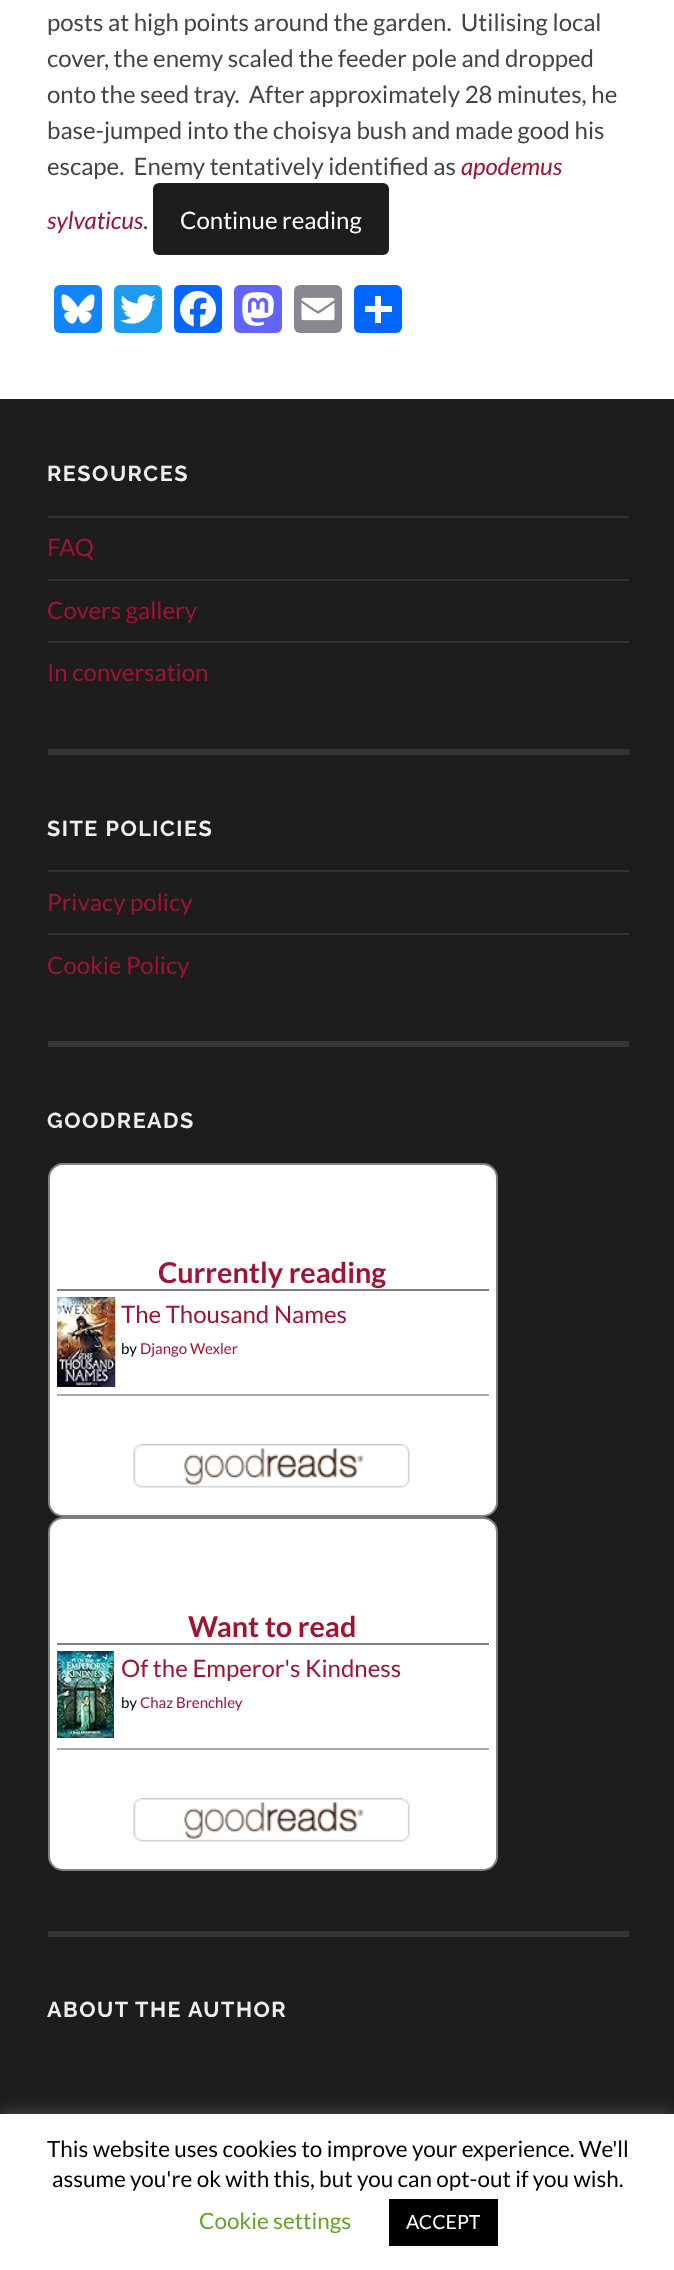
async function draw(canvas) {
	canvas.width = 674;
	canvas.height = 2270;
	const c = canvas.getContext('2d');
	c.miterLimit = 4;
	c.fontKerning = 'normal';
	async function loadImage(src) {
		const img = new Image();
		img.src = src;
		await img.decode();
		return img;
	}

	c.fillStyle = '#fff';
	c.fillRect(0, 0, 674, 2270);
	c.font = '24px Lato';
	c.fillStyle = '#444';
	for (const [text, x, y] of [
		['posts at high points around the garden.  Utilising local', 47, 31],
		['cover, the enemy scaled the feeder pole and dropped', 47, 67],
		['onto the seed tray.  After approximately 28 minutes, he', 47, 103],
		['base-jumped into the choisya bush and made good his', 47, 139],
		['escape.  Enemy tentatively identified as', 47, 175],
	]) {
		c.fillText(text, x, y);
	}
	c.font = 'italic 24px Lato';
	c.fillStyle = '#9e1432';
	c.fillText('apodemus', 461, 175);
	c.fillText('sylvaticus', 47, 229);
	c.font = '24px Lato';
	c.fillStyle = '#444';
	c.fillText('.', 143, 229);
	c.fillStyle = '#1d1d1d';
	c.beginPath();
	c.roundRect(153, 183, 236, 72, 6);
	c.fill();
	c.fillStyle = '#fff';
	c.fillText('Continue reading', 180, 229);
	c.fillStyle = '#1285fe';
	c.beginPath();
	c.roundRect(54, 285, 48, 48, 6);
	c.fill();
	c.drawImage(await loadImage('img1.png'), 61, 294, 34, 30);
	c.fillStyle = '#1d9bf0';
	c.beginPath();
	c.roundRect(114, 285, 48, 48, 6);
	c.fill();
	c.drawImage(await loadImage('img2.png'), 120, 294, 36, 30);
	c.fillStyle = '#0866ff';
	c.beginPath();
	c.roundRect(174, 285, 48, 48, 6);
	c.fill();
	c.drawImage(await loadImage('img3.png'), 180, 291, 36, 36);
	c.fillStyle = '#6364ff';
	c.beginPath();
	c.roundRect(234, 285, 48, 48, 6);
	c.fill();
	c.drawImage(await loadImage('img4.png'), 242, 292, 32, 34);
	c.fillStyle = '#888990';
	c.beginPath();
	c.roundRect(294, 285, 48, 48, 6);
	c.fill();
	c.drawImage(await loadImage('img5.png'), 301, 297, 34, 24);
	c.fillStyle = '#0166ff';
	c.beginPath();
	c.roundRect(354, 285, 48, 48, 6);
	c.fill();
	for (const [x, y, w, h, color] of [
		[375, 296, 6, 27, '#fff'],
		[365, 306, 27, 6, '#fff'],
		[0, 399, 674, 1715, '#1d1d1d'],
		[48, 749, 581, 6, '#333'],
	]) {
		c.fillStyle = color;
		c.fillRect(x, y, w, h);
	}
	c.letterSpacing = '1.5px';
	c.font = '100 21.6px Raleway';
	c.fillStyle = '#eee';
	c.fillText('RESOURCES', 47, 481);
	c.fillStyle = '#333';
	c.fillRect(48, 516, 581, 2);
	c.letterSpacing = '0px';
	c.font = '24px Lato';
	c.fillStyle = '#9e1432';
	c.fillText('FAQ', 47, 556);
	c.fillStyle = '#333';
	c.fillRect(48, 579, 581, 2);
	c.fillStyle = '#9e1432';
	c.fillText('Covers gallery', 47, 619);
	c.fillStyle = '#333';
	c.fillRect(48, 641, 581, 2);
	c.fillStyle = '#9e1432';
	c.fillText('In conversation', 47, 681);
	c.letterSpacing = '1.5px';
	c.font = '100 21.6px Raleway';
	c.fillStyle = '#eee';
	c.fillText('SITE POLICIES', 47, 836);
	c.fillStyle = '#333';
	c.fillRect(48, 870, 581, 2);
	c.letterSpacing = '0px';
	c.font = '24px Lato';
	c.fillStyle = '#9e1432';
	c.fillText('Privacy policy', 47, 911);
	c.fillStyle = '#333';
	c.fillRect(48, 933, 581, 2);
	c.fillStyle = '#9e1432';
	c.fillText('Cookie Policy', 47, 974);
	c.fillStyle = '#343434';
	c.fillRect(48, 1041, 581, 6);
	c.letterSpacing = '1.5px';
	c.font = '100 21.6px Raleway';
	c.fillStyle = '#eee';
	c.fillText('GOODREADS', 47, 1128);
	c.fillStyle = '#fff';
	c.beginPath();
	c.roundRect(49, 1164, 448, 352, 14);
	c.fill();
	c.strokeStyle = '#808080';
	c.lineWidth = 2;
	c.stroke();
	c.fillStyle = '#808080';
	c.fillRect(57, 1289, 432, 2);
	c.letterSpacing = '0px';
	c.font = 'bold 28.75px Lato';
	c.fillStyle = '#9e1432';
	c.fillText('Currently reading', 158, 1283);
	c.fillStyle = '#aaa';
	c.fillRect(57, 1394, 432, 2);
	c.drawImage(await loadImage('img6.png'), 57, 1297, 59, 90);
	c.font = '24px Lato';
	c.fillStyle = '#9e1432';
	c.fillText('The Thousand Names', 121, 1323);
	c.font = '15px Lato';
	c.fillStyle = '#000';
	c.fillText('by', 121, 1354);
	c.fillStyle = '#9e1432';
	c.fillText('Django Wexler', 140, 1354);
	c.drawImage(await loadImage('img7.png'), 133, 1444, 277, 44);
	c.fillStyle = '#fff';
	c.beginPath();
	c.roundRect(49, 1518, 448, 352, 14);
	c.fill();
	c.stroke();
	c.fillStyle = '#808080';
	c.fillRect(57, 1643, 432, 2);
	c.font = 'bold 28.75px Lato';
	c.fillStyle = '#9e1432';
	c.fillText('Want to read', 188, 1637);
	c.fillStyle = '#aaa';
	c.fillRect(57, 1748, 432, 2);
	c.drawImage(await loadImage('img8.png'), 57, 1651, 57, 87);
	c.font = '24px Lato';
	c.fillStyle = '#9e1432';
	c.fillText('Of the Emperor\'s Kindness', 121, 1677);
	c.font = '15px Lato';
	c.fillStyle = '#000';
	c.fillText('by', 121, 1708);
	c.fillStyle = '#9e1432';
	c.fillText('Chaz Brenchley', 140, 1708);
	c.drawImage(await loadImage('img7.png'), 133, 1798, 277, 44);
	c.fillStyle = '#343434';
	c.fillRect(48, 1931, 581, 6);
	c.letterSpacing = '1.5px';
	c.font = '100 21.6px Raleway';
	c.fillStyle = '#eee';
	c.fillText('ABOUT THE AUTHOR', 47, 2017);
	c.fillStyle = '#acabab4d';
	c.filter = 'blur(7.5px)';
	c.beginPath();
	c.rect(0, 2112, 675, 158);
	c.fill();
	c.filter = 'none';
	c.fillStyle = '#fff';
	c.fillRect(0, 2114, 674, 156);
	c.letterSpacing = '0px';
	c.font = '22.5px Lato';
	c.fillStyle = '#000';
	c.fillText('This website uses cookies to improve your experience. We\'ll', 47, 2157);
	c.fillText('assume you\'re ok with this, but you can opt-out if you wish.', 52, 2187);
	c.fillStyle = '#62a329';
	c.fillText('Cookie settings', 199, 2229);
	c.fillStyle = '#000';
	c.fillRect(389, 2199, 109, 47);
	c.font = '19.5px Lato';
	c.fillStyle = '#fff';
	c.fillText('ACCEPT', 406, 2229);
}

draw(document.querySelector('canvas'));
